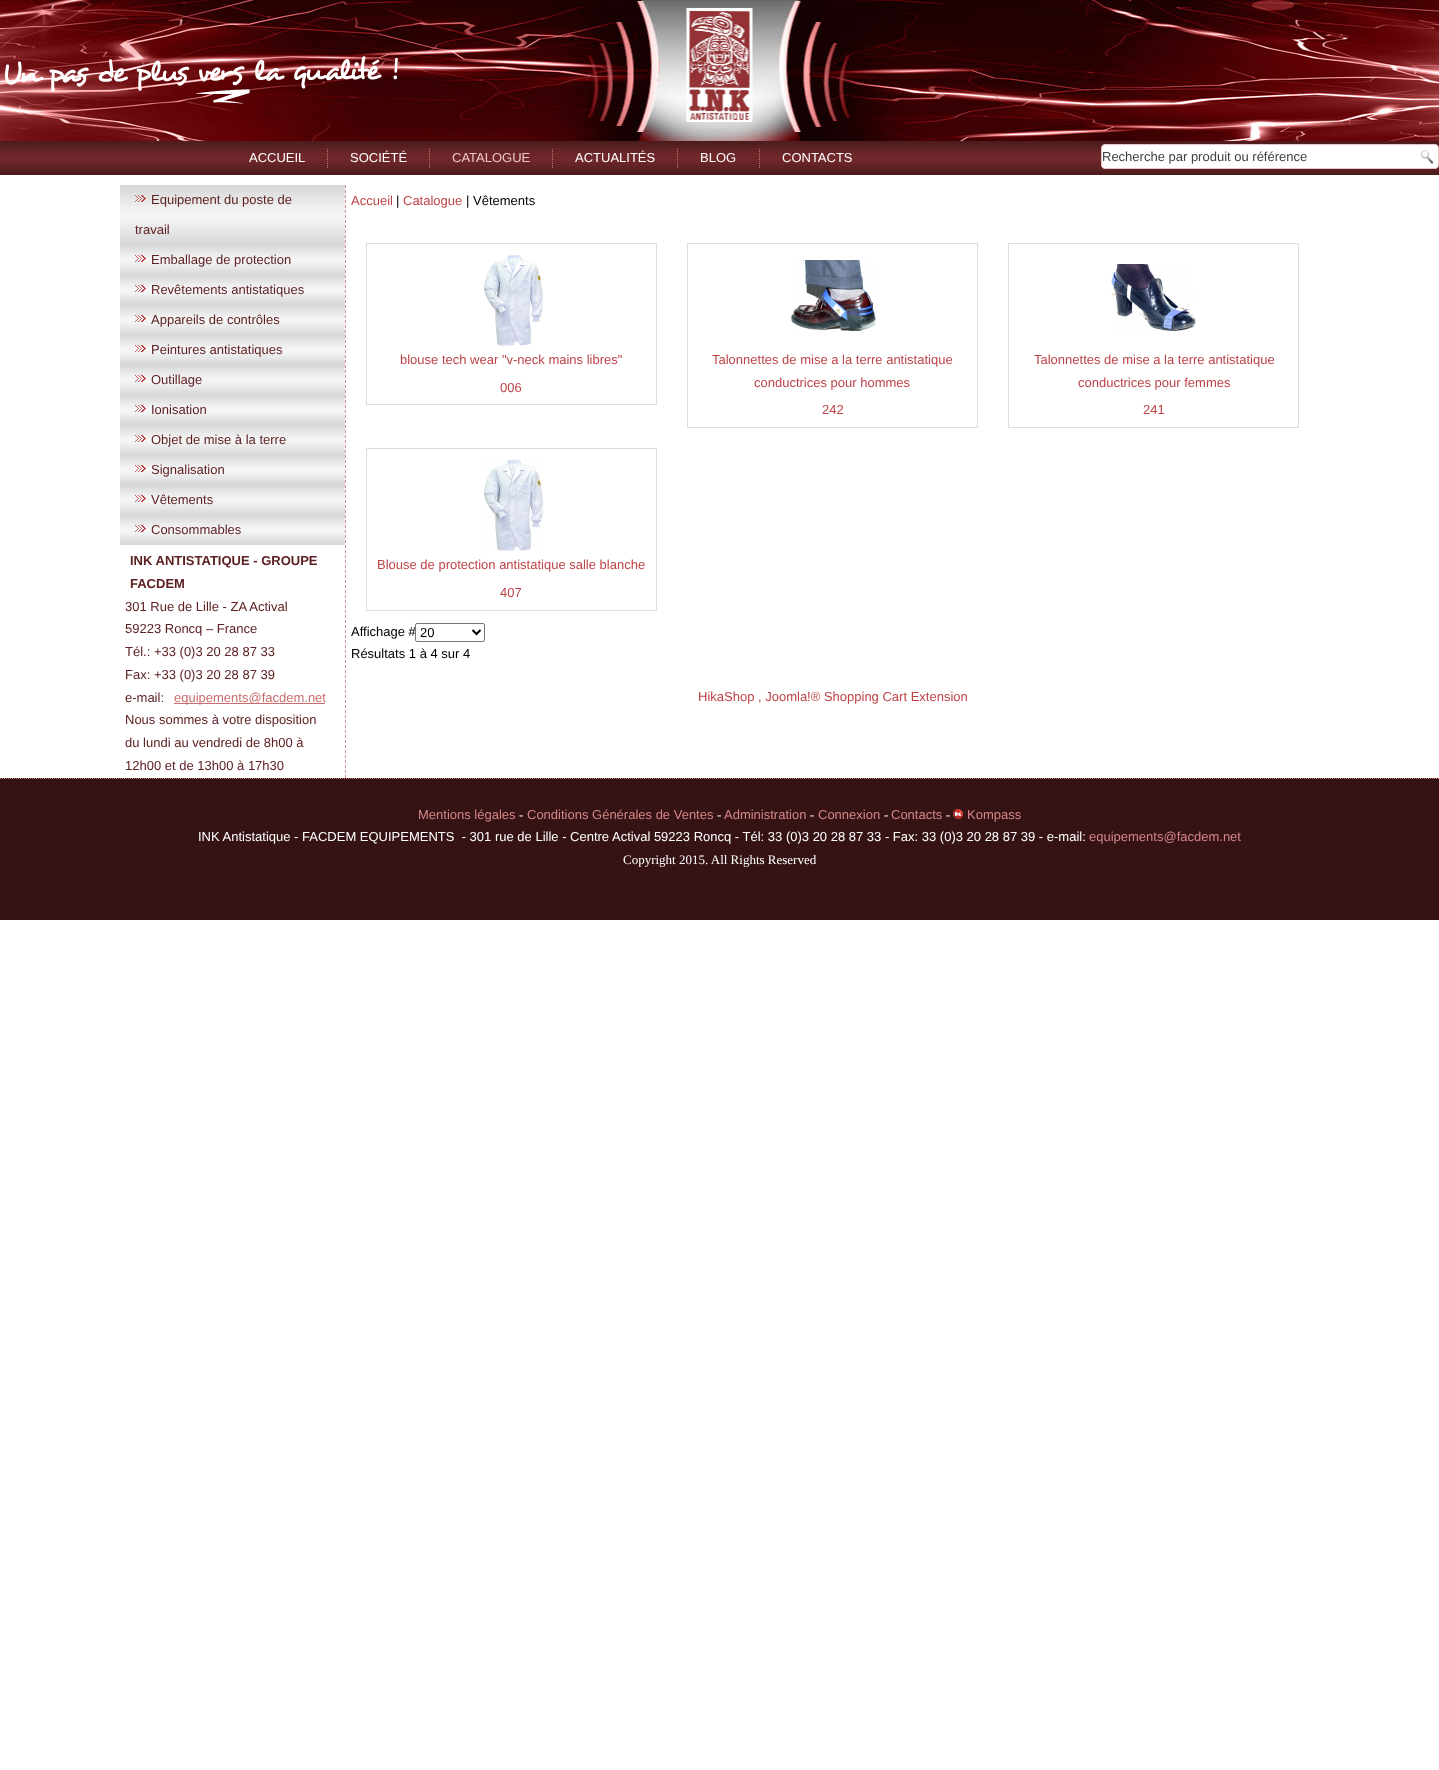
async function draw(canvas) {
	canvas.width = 1439;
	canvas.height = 1770;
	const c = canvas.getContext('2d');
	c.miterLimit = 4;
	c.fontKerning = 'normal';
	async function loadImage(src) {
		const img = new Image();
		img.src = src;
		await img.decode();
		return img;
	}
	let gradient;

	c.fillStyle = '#fff';
	c.fillRect(0, 0, 1439, 1770);
	c.drawImage(await loadImage('img1.png'), 0, 0, 1439, 141);
	gradient = c.createLinearGradient(720, 141, 720, 175);
	gradient.addColorStop(0, '#4b1b1c');
	gradient.addColorStop(0.4, '#6d2629');
	gradient.addColorStop(0.5, '#71282a');
	gradient.addColorStop(0.6, '#6d2629');
	gradient.addColorStop(1, '#4b1b1c');
	c.fillStyle = gradient;
	c.fillRect(0, 141, 1439, 34);
	c.drawImage(await loadImage('img2.png'), 5, 56, 393, 48);
	c.font = '13px Liberation Sans';
	c.fillStyle = '#fff';
	c.fillText('ACCUEIL', 249, 162);
	c.drawImage(await loadImage('img3.png'), 327, 149, 1, 19);
	c.fillText('SOCIÉTÉ', 350, 162);
	c.drawImage(await loadImage('img3.png'), 429, 149, 1, 19);
	c.fillStyle = '#ebc6c8';
	c.fillText('CATALOGUE', 452, 162);
	c.drawImage(await loadImage('img3.png'), 552, 149, 1, 19);
	c.fillStyle = '#fff';
	c.fillText('ACTUALITÉS', 575, 162);
	c.drawImage(await loadImage('img3.png'), 677, 149, 1, 19);
	c.fillText('BLOG', 700, 162);
	c.drawImage(await loadImage('img3.png'), 759, 149, 1, 19);
	c.fillText('CONTACTS', 782, 162);
	c.beginPath();
	c.roundRect(1101.5, 144.5, 337, 24, 3.5);
	c.fill();
	c.strokeStyle = '#eac3c4';
	c.stroke();
	c.fillStyle = '#404040';
	c.fillText('Recherche par produit ou référence', 1102, 161);
	c.drawImage(await loadImage('img4.png'), 1420, 150, 14, 14);
	c.beginPath();
	c.moveTo(345.5, 185);
	c.lineTo(345.5, 778);
	c.strokeStyle = '#d99294';
	c.setLineDash([3, 2]);
	c.stroke();
	gradient = c.createLinearGradient(233, 185, 233, 245);
	gradient.addColorStop(0, '#d6d6d6');
	gradient.addColorStop(0.4, '#f2f2f2');
	gradient.addColorStop(0.5, '#f5f5f5');
	gradient.addColorStop(0.6, '#f2f2f2');
	gradient.addColorStop(1, '#d6d6d6');
	c.fillStyle = gradient;
	c.fillRect(120, 185, 225, 60);
	c.drawImage(await loadImage('img5.png'), 135, 195, 11, 7);
	c.fillStyle = '#5e2123';
	c.fillText('Equipement du poste de', 151, 204);
	c.fillText('travail', 135, 234);
	gradient = c.createLinearGradient(233, 245, 233, 275);
	gradient.addColorStop(0, '#d6d6d6');
	gradient.addColorStop(0.4, '#f2f2f2');
	gradient.addColorStop(0.5, '#f5f5f5');
	gradient.addColorStop(0.6, '#f2f2f2');
	gradient.addColorStop(1, '#d6d6d6');
	c.fillStyle = gradient;
	c.fillRect(120, 245, 225, 30);
	c.drawImage(await loadImage('img6.png'), 135, 255, 11, 7);
	c.fillStyle = '#5e2123';
	c.fillText('Emballage de protection', 151, 264);
	gradient = c.createLinearGradient(233, 275, 233, 305);
	gradient.addColorStop(0, '#d6d6d6');
	gradient.addColorStop(0.4, '#f2f2f2');
	gradient.addColorStop(0.5, '#f5f5f5');
	gradient.addColorStop(0.6, '#f2f2f2');
	gradient.addColorStop(1, '#d6d6d6');
	c.fillStyle = gradient;
	c.fillRect(120, 275, 225, 30);
	c.drawImage(await loadImage('img6.png'), 135, 285, 11, 7);
	c.fillStyle = '#5e2123';
	c.fillText('Revêtements antistatiques', 151, 294);
	gradient = c.createLinearGradient(233, 305, 233, 335);
	gradient.addColorStop(0, '#d6d6d6');
	gradient.addColorStop(0.4, '#f2f2f2');
	gradient.addColorStop(0.5, '#f5f5f5');
	gradient.addColorStop(0.6, '#f2f2f2');
	gradient.addColorStop(1, '#d6d6d6');
	c.fillStyle = gradient;
	c.fillRect(120, 305, 225, 30);
	c.drawImage(await loadImage('img6.png'), 135, 315, 11, 7);
	c.fillStyle = '#5e2123';
	c.fillText('Appareils de contrôles', 151, 324);
	gradient = c.createLinearGradient(233, 335, 233, 365);
	gradient.addColorStop(0, '#d6d6d6');
	gradient.addColorStop(0.4, '#f2f2f2');
	gradient.addColorStop(0.5, '#f5f5f5');
	gradient.addColorStop(0.6, '#f2f2f2');
	gradient.addColorStop(1, '#d6d6d6');
	c.fillStyle = gradient;
	c.fillRect(120, 335, 225, 30);
	c.drawImage(await loadImage('img6.png'), 135, 345, 11, 7);
	c.fillStyle = '#5e2123';
	c.fillText('Peintures antistatiques', 151, 354);
	gradient = c.createLinearGradient(233, 365, 233, 395);
	gradient.addColorStop(0, '#d6d6d6');
	gradient.addColorStop(0.4, '#f2f2f2');
	gradient.addColorStop(0.5, '#f5f5f5');
	gradient.addColorStop(0.6, '#f2f2f2');
	gradient.addColorStop(1, '#d6d6d6');
	c.fillStyle = gradient;
	c.fillRect(120, 365, 225, 30);
	c.drawImage(await loadImage('img6.png'), 135, 375, 11, 7);
	c.fillStyle = '#5e2123';
	c.fillText('Outillage', 151, 384);
	gradient = c.createLinearGradient(233, 395, 233, 425);
	gradient.addColorStop(0, '#d6d6d6');
	gradient.addColorStop(0.4, '#f2f2f2');
	gradient.addColorStop(0.5, '#f5f5f5');
	gradient.addColorStop(0.6, '#f2f2f2');
	gradient.addColorStop(1, '#d6d6d6');
	c.fillStyle = gradient;
	c.fillRect(120, 395, 225, 30);
	c.drawImage(await loadImage('img6.png'), 135, 405, 11, 7);
	c.fillStyle = '#5e2123';
	c.fillText('Ionisation', 151, 414);
	gradient = c.createLinearGradient(233, 425, 233, 455);
	gradient.addColorStop(0, '#d6d6d6');
	gradient.addColorStop(0.4, '#f2f2f2');
	gradient.addColorStop(0.5, '#f5f5f5');
	gradient.addColorStop(0.6, '#f2f2f2');
	gradient.addColorStop(1, '#d6d6d6');
	c.fillStyle = gradient;
	c.fillRect(120, 425, 225, 30);
	c.drawImage(await loadImage('img6.png'), 135, 435, 11, 7);
	c.fillStyle = '#5e2123';
	c.fillText('Objet de mise à la terre', 151, 444);
	gradient = c.createLinearGradient(233, 455, 233, 485);
	gradient.addColorStop(0, '#d6d6d6');
	gradient.addColorStop(0.4, '#f2f2f2');
	gradient.addColorStop(0.5, '#f5f5f5');
	gradient.addColorStop(0.6, '#f2f2f2');
	gradient.addColorStop(1, '#d6d6d6');
	c.fillStyle = gradient;
	c.fillRect(120, 455, 225, 30);
	c.drawImage(await loadImage('img6.png'), 135, 465, 11, 7);
	c.fillStyle = '#5e2123';
	c.fillText('Signalisation', 151, 474);
	gradient = c.createLinearGradient(233, 485, 233, 515);
	gradient.addColorStop(0, '#d6d6d6');
	gradient.addColorStop(0.4, '#f2f2f2');
	gradient.addColorStop(0.5, '#f5f5f5');
	gradient.addColorStop(0.6, '#f2f2f2');
	gradient.addColorStop(1, '#d6d6d6');
	c.fillStyle = gradient;
	c.fillRect(120, 485, 225, 30);
	c.drawImage(await loadImage('img6.png'), 135, 495, 11, 7);
	c.fillStyle = '#5e2123';
	c.fillText('Vêtements', 151, 504);
	gradient = c.createLinearGradient(233, 515, 233, 545);
	gradient.addColorStop(0, '#d6d6d6');
	gradient.addColorStop(0.4, '#f2f2f2');
	gradient.addColorStop(0.5, '#f5f5f5');
	gradient.addColorStop(0.6, '#f2f2f2');
	gradient.addColorStop(1, '#d6d6d6');
	c.fillStyle = gradient;
	c.fillRect(120, 515, 225, 30);
	c.drawImage(await loadImage('img6.png'), 135, 525, 11, 7);
	c.fillStyle = '#5e2123';
	c.fillText('Consommables', 151, 534);
	c.font = 'bold 13px Liberation Sans';
	c.fillText('INK ANTISTATIQUE - GROUPE', 130, 565);
	c.fillText('FACDEM', 130, 588);
	c.font = '13px Liberation Sans';
	for (const [text, x, y] of [
		['301 Rue de Lille - ZA Actival', 125, 611],
		['59223 Roncq – France', 125, 633],
		['Tél.: +33 (0)3 20 28 87 33', 125, 656],
		['Fax: +33 (0)3 20 28 87 39', 125, 679],
		['e-mail:', 125, 702],
	]) {
		c.fillText(text, x, y);
	}
	c.fillStyle = '#cb6c6f';
	c.fillRect(174, 703, 151, 1);
	c.fillText('equipements@facdem.net', 174, 702);
	c.fillStyle = '#5e2123';
	for (const [text, x, y] of [
		['Nous sommes à votre disposition', 125, 724],
		['du lundi au vendredi de 8h00 à', 125, 747],
		['12h00 et de 13h00 à 17h30', 125, 770],
	]) {
		c.fillText(text, x, y);
	}
	c.fillStyle = '#bd4246';
	c.fillText('Accueil', 351, 205);
	c.fillStyle = '#000';
	c.fillText('|', 396, 205);
	c.fillStyle = '#bd4246';
	c.fillText('Catalogue', 403, 205);
	c.fillStyle = '#000';
	c.fillText('| Vêtements', 466, 205);
	c.strokeStyle = '#ddd';
	c.setLineDash([]);
	c.strokeRect(366.5, 243.5, 290, 161);
	c.drawImage(await loadImage('img7.png'), 484, 254, 60, 92);
	c.fillStyle = '#bd4246';
	c.fillText('blouse tech wear "v-neck mains libres"', 400, 364);
	c.fillText('006', 500, 392);
	c.strokeRect(687.5, 243.5, 290, 184);
	c.drawImage(await loadImage('img8.png'), 791, 260, 85, 72);
	for (const [text, x, y] of [
		['Talonnettes de mise a la terre antistatique', 712, 364],
		['conductrices pour hommes', 754, 387],
		['242', 822, 414],
	]) {
		c.fillText(text, x, y);
	}
	c.strokeRect(1008.5, 243.5, 290, 184);
	c.drawImage(await loadImage('img9.png'), 1111, 264, 85, 67);
	for (const [text, x, y] of [
		['Talonnettes de mise a la terre antistatique', 1034, 364],
		['conductrices pour femmes', 1078, 387],
		['241', 1143, 414],
	]) {
		c.fillText(text, x, y);
	}
	c.strokeRect(366.5, 448.5, 290, 162);
	c.drawImage(await loadImage('img10.png'), 484, 459, 60, 92);
	c.fillText('Blouse de protection antistatique salle blanche', 377, 569);
	c.fillText('407', 500, 597);
	c.fillStyle = '#000';
	c.fillText('Affichage #', 351, 636);
	c.fillStyle = '#fff';
	c.beginPath();
	c.roundRect(415.5, 623.5, 69, 18, 1.5);
	c.fill();
	c.strokeStyle = '#767676';
	c.stroke();
	c.beginPath();
	c.moveTo(472.5, 630);
	c.lineTo(476.5, 634);
	c.lineTo(480.5, 630);
	c.strokeStyle = '#000';
	c.lineWidth = 2;
	c.stroke();
	c.fillStyle = '#000';
	c.fillText('20', 420, 637);
	c.fillText('Résultats 1 à 4 sur 4', 351, 658);
	c.fillStyle = '#bd4246';
	c.fillText('HikaShop , Joomla!® Shopping Cart Extension', 698, 701);
	c.fillStyle = '#351314';
	c.fillRect(0, 778, 1439, 142);
	c.beginPath();
	c.moveTo(0, 778.5);
	c.lineTo(1439, 778.5);
	c.strokeStyle = '#cd7073';
	c.lineWidth = 1;
	c.setLineDash([1, 1]);
	c.stroke();
	c.fillStyle = '#d58689';
	c.fillText('Mentions légales', 418, 819);
	c.font = '13px Liberation Serif';
	c.fillStyle = '#fff';
	c.fillText('-', 519, 819);
	c.font = '13px Liberation Sans';
	c.fillStyle = '#d58689';
	c.fillText('Conditions Générales de Ventes', 527, 819);
	c.font = '13px Liberation Serif';
	c.fillStyle = '#fff';
	c.fillText('-', 717, 819);
	c.font = '13px Liberation Sans';
	c.fillStyle = '#d58689';
	c.fillText('Administration', 724, 819);
	c.font = '13px Liberation Serif';
	c.fillStyle = '#fff';
	c.fillText('-', 810, 819);
	c.font = '13px Liberation Sans';
	c.fillStyle = '#d58689';
	c.fillText('Connexion', 818, 819);
	c.font = '13px Liberation Serif';
	c.fillStyle = '#fff';
	c.fillText('-', 884, 819);
	c.font = '13px Liberation Sans';
	c.fillStyle = '#d58689';
	c.fillText('Contacts', 891, 819);
	c.font = '13px Liberation Serif';
	c.fillStyle = '#fff';
	c.fillText('-', 946, 819);
	c.drawImage(await loadImage('img11.png'), 953, 809, 10, 10);
	c.font = '13px Liberation Sans';
	c.fillStyle = '#d58689';
	c.fillText('Kompass', 967, 819);
	c.fillStyle = '#fff';
	c.fillText('INK Antistatique - FACDEM EQUIPEMENTS  - 301 rue de Lille - Centre Actival 59223 Roncq - Tél: 33 (0)3 20 28 87 33 - Fax: 33 (0)3 20 28 87 39 - e-mail:', 198, 841);
	c.fillStyle = '#d58689';
	c.fillText('equipements@facdem.net', 1089, 841);
	c.font = '13px Liberation Serif';
	c.fillStyle = '#fff';
	c.fillText('Copyright 2015. All Rights Reserved', 623, 864);
}

draw(document.querySelector('canvas'));
